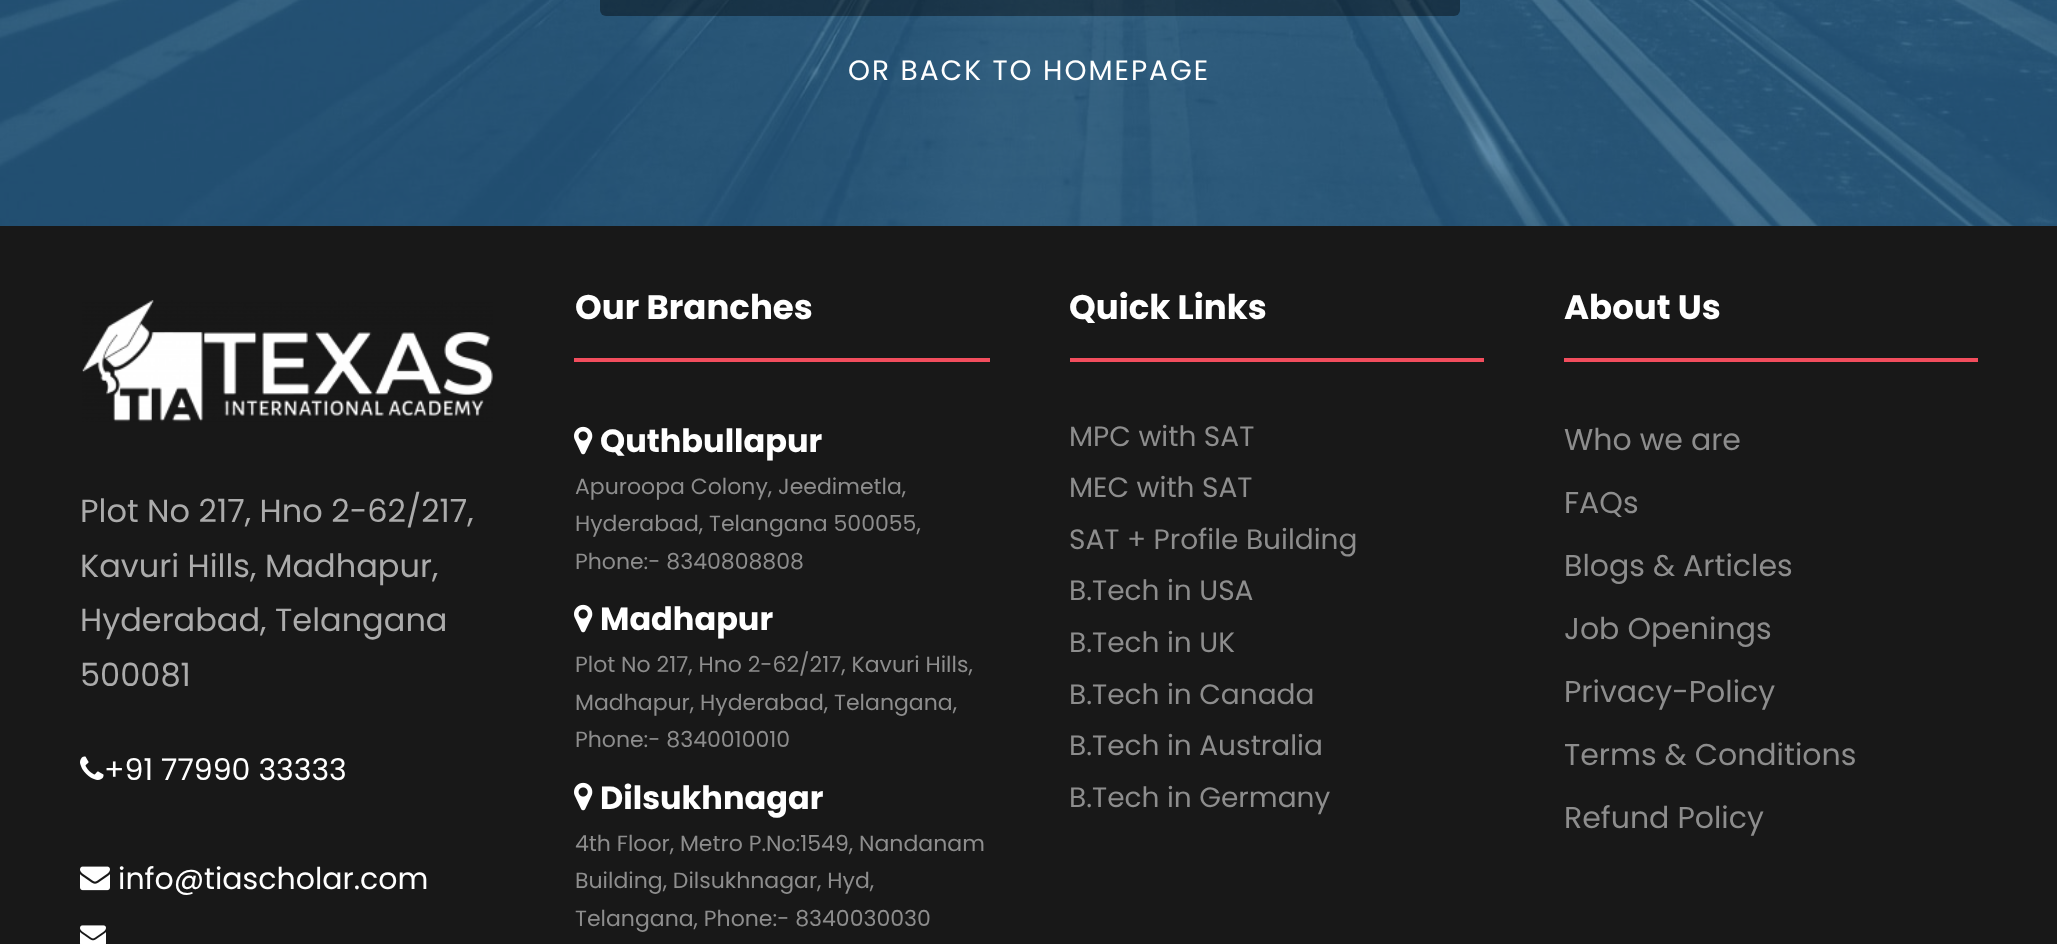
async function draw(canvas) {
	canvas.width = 2057;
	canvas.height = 944;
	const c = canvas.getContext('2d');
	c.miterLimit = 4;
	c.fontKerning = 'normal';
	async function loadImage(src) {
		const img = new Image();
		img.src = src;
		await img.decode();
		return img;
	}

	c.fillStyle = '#181818';
	c.fillRect(0, 0, 2057, 944);
	c.fillStyle = '#23618e';
	c.fillRect(0, 0, 2057, 226);
	c.drawImage(await loadImage('img1.png'), 0, 0, 2057, 226);
	c.fillStyle = '#00000066';
	c.beginPath();
	c.roundRect(600, -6, 860, 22, 6);
	c.fill();
	c.letterSpacing = '2px';
	c.font = '28px Poppins';
	c.fillStyle = '#fff';
	c.fillText('OR BACK TO HOMEPAGE', 848, 80);
	c.drawImage(await loadImage('img2.png'), 82, 300, 411, 122);
	c.letterSpacing = '0px';
	c.font = '32px Poppins';
	c.fillStyle = '#ababab';
	for (const [text, x, y] of [
		['Plot No 217, Hno 2-62/217,', 80, 522],
		['Kavuri Hills, Madhapur,', 80, 577],
		['Hyderabad, Telangana', 80, 631],
		['500081', 80, 686],
	]) {
		c.fillText(text, x, y);
	}
	c.drawImage(await loadImage('img3.png'), 80, 756, 24, 24);
	c.font = '30px Poppins';
	c.fillStyle = '#fff';
	c.fillText('+91 77990 33333', 104, 780);
	c.drawImage(await loadImage('img4.png'), 80, 866, 30, 25);
	c.fillText('info@tiascholar.com', 118, 889);
	c.drawImage(await loadImage('img5.png'), 80, 925, 26, 19);
	c.fillStyle = '#f24d5d';
	c.fillRect(574, 358, 416, 4);
	c.font = 'bold 34px Poppins';
	c.fillStyle = '#fff';
	c.fillText('Our Branches', 575, 319);
	c.drawImage(await loadImage('img6.png'), 574, 426, 19, 29);
	c.font = 'bold 32px Poppins';
	c.fillText('Quthbullapur', 600, 452);
	c.font = '22px Poppins';
	c.fillStyle = '#8d8d8d';
	for (const [text, x, y] of [
		['Apuroopa Colony, Jeedimetla,', 575, 494],
		['Hyderabad, Telangana 500055,', 575, 531],
		['Phone:- 8340808808', 575, 569],
	]) {
		c.fillText(text, x, y);
	}
	c.drawImage(await loadImage('img6.png'), 574, 604, 19, 29);
	c.font = 'bold 32px Poppins';
	c.fillStyle = '#fff';
	c.fillText('Madhapur', 600, 630);
	c.font = '22px Poppins';
	c.fillStyle = '#8d8d8d';
	for (const [text, x, y] of [
		['Plot No 217, Hno 2-62/217, Kavuri Hills,', 575, 672],
		['Madhapur, Hyderabad, Telangana,', 575, 710],
		['Phone:- 8340010010', 575, 747],
	]) {
		c.fillText(text, x, y);
	}
	c.drawImage(await loadImage('img6.png'), 574, 782, 19, 29);
	c.font = 'bold 32px Poppins';
	c.fillStyle = '#fff';
	c.fillText('Dilsukhnagar', 600, 809);
	c.font = '22px Poppins';
	c.fillStyle = '#8d8d8d';
	for (const [text, x, y] of [
		['4th Floor, Metro P.No:1549, Nandanam', 575, 851],
		['Building, Dilsukhnagar, Hyd,', 575, 888],
		['Telangana, Phone:- 8340030030', 575, 926],
	]) {
		c.fillText(text, x, y);
	}
	c.fillStyle = '#f24d5d';
	c.fillRect(1070, 358, 414, 4);
	c.font = 'bold 34px Poppins';
	c.fillStyle = '#fff';
	c.fillText('Quick Links', 1069, 319);
	c.font = '28px Poppins';
	c.fillStyle = '#8d8d8d';
	for (const [text, x, y] of [
		['MPC with SAT', 1069, 446],
		['MEC with SAT', 1069, 497],
		['SAT + Profile Building', 1069, 549],
		['B.Tech in USA', 1069, 600],
		['B.Tech in UK', 1069, 652],
		['B.Tech in Canada', 1069, 704],
		['B.Tech in Australia', 1069, 755],
		['B.Tech in Germany', 1069, 807],
	]) {
		c.fillText(text, x, y);
	}
	c.fillStyle = '#f24d5d';
	c.fillRect(1564, 358, 414, 4);
	c.font = 'bold 34px Poppins';
	c.fillStyle = '#fff';
	c.fillText('About Us', 1564, 319);
	c.font = '30px Poppins';
	c.fillStyle = '#8d8d8d';
	for (const [text, x, y] of [
		['Who we are', 1564, 450],
		['FAQs', 1564, 513],
		['Blogs & Articles', 1564, 576],
		['Job Openings', 1564, 639],
		['Privacy-Policy', 1564, 702],
		['Terms & Conditions', 1564, 765],
		['Refund Policy', 1564, 828],
	]) {
		c.fillText(text, x, y);
	}
}

draw(document.querySelector('canvas'));
